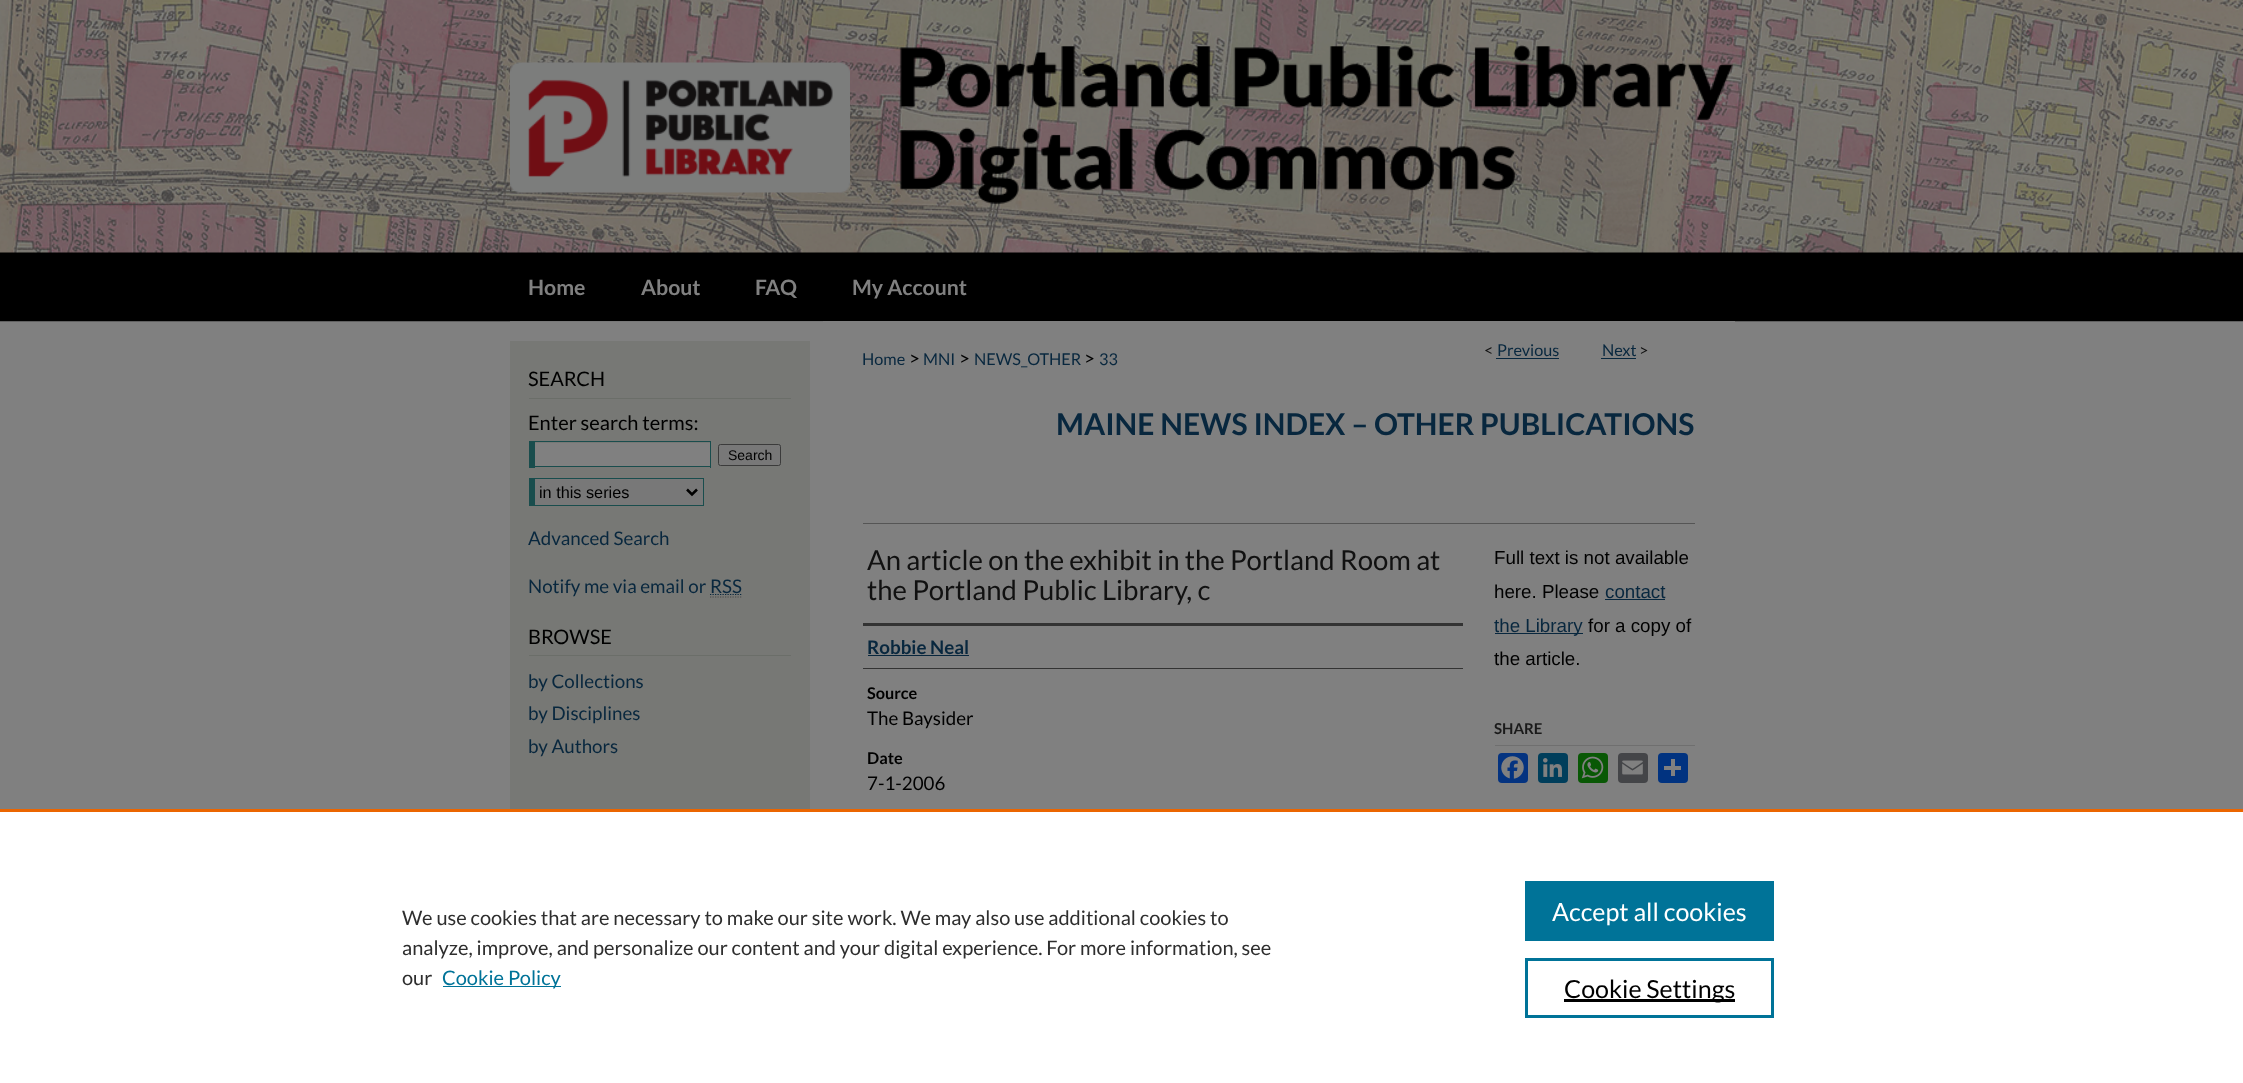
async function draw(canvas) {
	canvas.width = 2243;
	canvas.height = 1083;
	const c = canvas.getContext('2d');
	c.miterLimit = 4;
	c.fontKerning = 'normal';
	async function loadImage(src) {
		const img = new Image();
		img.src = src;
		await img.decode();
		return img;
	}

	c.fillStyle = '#808080';
	c.fillRect(0, 0, 2243, 1083);
	c.drawImage(await loadImage('img1.png'), 0, 0, 2243, 322);
	c.drawImage(await loadImage('img2.png'), 510, 62, 340, 131);
	c.drawImage(await loadImage('img3.png'), 899, 45, 834, 159);
	c.font = 'bold 21.25px Lato';
	for (const [text, x, y] of [
		['Home', 528, 295],
		['About', 641, 295],
		['FAQ', 755, 295],
		['My Account', 852, 295],
	]) {
		c.fillText(text, x, y);
	}
	for (const [x, y, w, h, color] of [
		[510, 321, 313, 1, '#787878'],
		[510, 341, 300, 468, '#777875'],
		[529, 398, 262, 1, '#6b6e69'],
	]) {
		c.fillStyle = color;
		c.fillRect(x, y, w, h);
	}
	c.font = '20px Lato';
	c.fillStyle = '#000';
	c.fillText('SEARCH', 528, 386);
	c.fillText('Enter search terms:', 528, 430);
	for (const [x, y, w, h, color] of [
		[535, 443, 175, 23, '#808080'],
		[529, 441, 182, 1, '#194d4d'],
		[710, 441, 1, 27, '#194d4d'],
		[529, 466, 182, 1, '#194d4d'],
		[529, 441, 6, 27, '#194d4d'],
	]) {
		c.fillStyle = color;
		c.fillRect(x, y, w, h);
	}
	c.fillStyle = '#787878';
	c.beginPath();
	c.roundRect(718.5, 444.5, 62, 21, 2);
	c.fill();
	c.strokeStyle = '#3b3b3b';
	c.stroke();
	c.font = '14px Liberation Sans';
	c.fillStyle = '#000';
	c.fillText('Search', 728, 460);
	for (const [x, y, w, h, color] of [
		[535, 479, 168, 26, '#787878'],
		[529, 478, 175, 1, '#194d4d'],
		[703, 478, 1, 28, '#194d4d'],
		[529, 505, 175, 1, '#194d4d'],
		[529, 478, 6, 28, '#194d4d'],
	]) {
		c.fillStyle = color;
		c.fillRect(x, y, w, h);
	}
	c.beginPath();
	c.moveTo(687, 489.5);
	c.lineTo(692, 494.5);
	c.lineTo(697, 489.5);
	c.strokeStyle = '#000';
	c.lineWidth = 2.5;
	c.stroke();
	c.font = '16.25px Liberation Sans';
	c.fillStyle = '#000';
	c.fillText('in this series', 539, 498);
	c.font = '18.75px Lato';
	c.fillStyle = '#08273e';
	c.fillText('Advanced Search', 528, 545);
	c.fillText('Notify me via email or', 528, 593);
	c.beginPath();
	c.moveTo(710, 594.5);
	c.lineTo(742, 594.5);
	c.strokeStyle = '#08273e';
	c.lineWidth = 1.2;
	c.setLineDash([1.25, 1.25]);
	c.stroke();
	c.fillText('RSS', 710, 593);
	c.beginPath();
	c.moveTo(710, 597);
	c.lineTo(742.5, 597);
	c.strokeStyle = '#4d4d4d';
	c.stroke();
	c.fillStyle = '#6b6e69';
	c.fillRect(529, 655, 262, 1);
	c.font = '20px Lato';
	c.fillStyle = '#000';
	c.fillText('BROWSE', 528, 644);
	c.font = '18.75px Lato';
	c.fillStyle = '#08273e';
	for (const [text, x, y] of [
		['by Collections', 528, 688],
		['by Disciplines', 528, 720],
		['by Authors', 528, 753],
	]) {
		c.fillText(text, x, y);
	}
	c.fillStyle = '#808080';
	c.fillRect(823, 321, 912, 1);
	c.font = '16.25px Lato';
	c.fillStyle = '#111';
	c.fillText('<', 1484, 356);
	c.fillStyle = '#08273e';
	c.fillText('Previous', 1497, 356);
	c.fillRect(1496, 358, 63, 1);
	c.fillText('Next', 1602, 356);
	c.fillRect(1601, 358, 35, 1);
	c.fillStyle = '#111';
	c.fillText('>', 1639, 356);
	c.fillStyle = '#08273e';
	c.fillText('Home', 862, 365);
	c.font = '18.75px Lato';
	c.fillStyle = '#000';
	c.fillText('>', 909, 365);
	c.font = '16.25px Lato';
	c.fillStyle = '#08273e';
	c.fillText('MNI', 923, 365);
	c.font = '18.75px Lato';
	c.fillStyle = '#000';
	c.fillText('>', 959, 365);
	c.font = '16.25px Lato';
	c.fillStyle = '#08273e';
	c.fillText('NEWS_OTHER', 974, 365);
	c.font = '18.75px Lato';
	c.fillStyle = '#000';
	c.fillText('>', 1084, 365);
	c.font = '16.25px Lato';
	c.fillStyle = '#08273e';
	c.fillText('33', 1099, 365);
	c.font = 'bold 30px Lato';
	c.fillText('MAINE NEWS INDEX – OTHER PUBLICATIONS', 1056, 435);
	c.fillStyle = '#555';
	c.fillRect(863, 523, 832, 1);
	c.font = '27.5px Lato';
	c.fillStyle = '#111';
	c.fillText('An article on the exhibit in the Portland Room at', 867, 570);
	c.fillText('the Portland Public Library, c', 867, 600);
	c.fillStyle = '#333';
	c.fillRect(863, 623, 600, 3);
	c.fillRect(863, 668, 600, 1);
	c.font = 'bold 18.75px Lato';
	c.fillStyle = '#08273e';
	c.fillText('Robbie Neal', 867, 654);
	c.fillRect(868, 655, 101, 1);
	c.font = 'bold 16.25px Lato';
	c.fillStyle = '#000';
	c.fillText('Source', 867, 699);
	c.font = '18.75px Lato';
	c.fillText('The Baysider', 867, 725);
	c.font = 'bold 16.25px Lato';
	c.fillText('Date', 867, 764);
	c.font = '18.75px Lato';
	c.fillText('7-1-2006', 867, 790);
	c.font = '18.75px Liberation Sans';
	c.fillText('Full text is not available', 1494, 564);
	c.fillText('here. Please', 1494, 598);
	c.fillStyle = '#08273e';
	c.fillText('contact', 1605, 598);
	c.fillRect(1605, 599, 60, 1);
	c.fillRect(1495, 633, 88, 1);
	c.fillText('the Library', 1494, 632);
	c.fillStyle = '#000';
	c.fillText('for a copy of', 1588, 632);
	c.fillText('the article.', 1494, 665);
	c.fillStyle = '#6f6f6f';
	c.fillRect(1495, 745, 200, 1);
	c.font = 'bold 15px Lato';
	c.fillStyle = '#1a1a1a';
	c.fillText('SHARE', 1494, 734);
	c.fillStyle = '#043380';
	c.beginPath();
	c.roundRect(1498, 753, 30, 30, 4);
	c.fill();
	c.drawImage(await loadImage('img4.png'), 1501, 756, 23, 23);
	c.fillStyle = '#003e5b';
	c.beginPath();
	c.roundRect(1538, 753, 30, 30, 4);
	c.fill();
	c.drawImage(await loadImage('img5.png'), 1543, 758, 19, 19);
	c.fillStyle = '#095805';
	c.beginPath();
	c.roundRect(1578, 753, 30, 30, 4);
	c.fill();
	c.drawImage(await loadImage('img6.png'), 1581, 756, 23, 23);
	c.fillStyle = '#444548';
	c.beginPath();
	c.roundRect(1618, 753, 30, 30, 4);
	c.fill();
	c.drawImage(await loadImage('img7.png'), 1622, 760, 21, 15);
	c.fillStyle = '#013380';
	c.beginPath();
	c.roundRect(1658, 753, 30, 30, 4);
	c.fill();
	for (const [x, y, w, h, color] of [
		[1671, 759, 4, 17, '#808080'],
		[1664, 766, 17, 4, '#808080'],
		[0, 812, 2243, 271, '#fff'],
		[0, 809, 2243, 3, '#eb6500'],
	]) {
		c.fillStyle = color;
		c.fillRect(x, y, w, h);
	}
	c.font = '20px Lato';
	c.fillStyle = '#2e2e2e';
	for (const [text, x, y] of [
		['We use cookies that are necessary to make our site work. We may also use additional cookies to', 402, 925],
		['analyze, improve, and personalize our content and your digital experience. For more information, see', 402, 955],
		['our', 402, 985],
	]) {
		c.fillText(text, x, y);
	}
	c.fillStyle = '#007398';
	c.fillRect(443, 986, 118, 1);
	c.fillText('Cookie Policy', 442, 985);
	c.fillRect(1525, 881, 249, 60);
	c.font = '25px Lato';
	c.fillStyle = '#fff';
	c.fillText('Accept all cookies', 1552, 921);
	c.strokeStyle = '#007398';
	c.lineWidth = 3;
	c.setLineDash([]);
	c.strokeRect(1526.5, 959.5, 246, 57);
	c.fillStyle = '#000';
	c.fillRect(1564, 999, 171, 3);
	c.fillText('Cookie Settings', 1564, 998);
}

draw(document.querySelector('canvas'));
